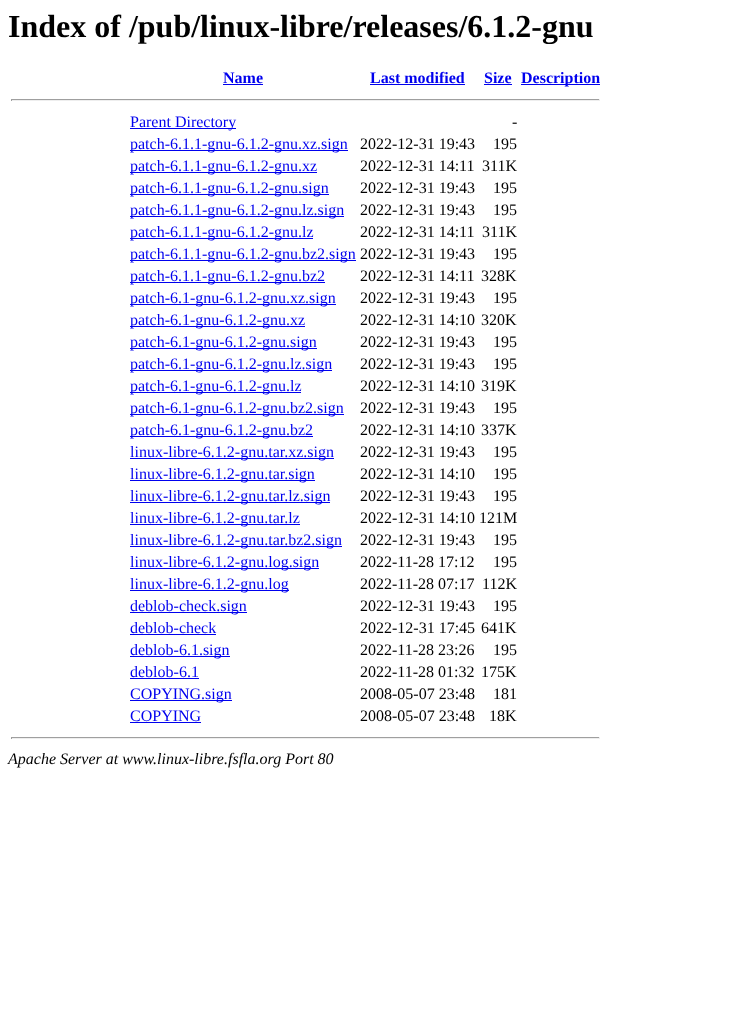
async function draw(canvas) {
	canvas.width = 736;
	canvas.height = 1016;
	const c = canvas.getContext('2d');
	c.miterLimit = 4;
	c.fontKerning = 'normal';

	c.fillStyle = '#fff';
	c.fillRect(0, 0, 736, 1016);
	c.font = 'bold 32px Liberation Serif';
	c.fillStyle = '#000';
	c.fillText('Index of /pub/linux-libre/releases/6.1.2-gnu', 8, 37);
	c.font = 'bold 16px Liberation Serif';
	c.fillStyle = '#00e';
	c.fillText('Name', 223, 83);
	c.fillRect(223, 84, 40, 1);
	c.fillText('Last modified', 370, 83);
	c.fillRect(370, 84, 95, 1);
	c.fillText('Size', 484, 83);
	c.fillRect(484, 84, 28, 1);
	c.fillRect(521, 84, 79, 1);
	c.fillText('Description', 521, 83);
	for (const [x, y, w, h, color] of [
		[11, 99, 589, 1, '#9f9f9f'],
		[599, 99, 1, 2, '#eee'],
		[11, 100, 589, 1, '#eee'],
		[11, 99, 1, 2, '#9f9f9f'],
		[130, 128, 106, 1, '#00e'],
	]) {
		c.fillStyle = color;
		c.fillRect(x, y, w, h);
	}
	c.font = '16px Liberation Serif';
	c.fillText('Parent Directory', 130, 127);
	c.fillStyle = '#000';
	c.fillText('-', 512, 127);
	c.fillStyle = '#00e';
	c.fillRect(130, 150, 218, 1);
	c.fillText('patch-6.1.1-gnu-6.1.2-gnu.xz.sign', 130, 149);
	c.fillStyle = '#000';
	c.fillText('2022-12-31 19:43', 360, 149);
	c.fillText('195', 493, 149);
	c.fillStyle = '#00e';
	c.fillRect(130, 172, 187, 1);
	c.fillText('patch-6.1.1-gnu-6.1.2-gnu.xz', 130, 171);
	c.fillStyle = '#000';
	c.fillText('2022-12-31 14:11', 360, 171);
	c.fillText('311K', 482, 171);
	c.fillStyle = '#00e';
	c.fillRect(130, 194, 199, 1);
	c.fillText('patch-6.1.1-gnu-6.1.2-gnu.sign', 130, 193);
	c.fillStyle = '#000';
	c.fillText('2022-12-31 19:43', 360, 193);
	c.fillText('195', 493, 193);
	c.fillStyle = '#00e';
	c.fillRect(130, 216, 214, 1);
	c.fillText('patch-6.1.1-gnu-6.1.2-gnu.lz.sign', 130, 215);
	c.fillStyle = '#000';
	c.fillText('2022-12-31 19:43', 360, 215);
	c.fillText('195', 493, 215);
	c.fillStyle = '#00e';
	c.fillRect(130, 238, 183, 1);
	c.fillText('patch-6.1.1-gnu-6.1.2-gnu.lz', 130, 237);
	c.fillStyle = '#000';
	c.fillText('2022-12-31 14:11', 360, 237);
	c.fillText('311K', 482, 237);
	c.fillStyle = '#00e';
	c.fillRect(130, 260, 226, 1);
	c.fillText('patch-6.1.1-gnu-6.1.2-gnu.bz2.sign', 130, 259);
	c.fillStyle = '#000';
	c.fillText('2022-12-31 19:43', 360, 259);
	c.fillText('195', 493, 259);
	c.fillStyle = '#00e';
	c.fillRect(130, 282, 195, 1);
	c.fillText('patch-6.1.1-gnu-6.1.2-gnu.bz2', 130, 281);
	c.fillStyle = '#000';
	c.fillText('2022-12-31 14:11', 360, 281);
	c.fillText('328K', 481, 281);
	c.fillStyle = '#00e';
	c.fillRect(130, 304, 206, 1);
	c.fillText('patch-6.1-gnu-6.1.2-gnu.xz.sign', 130, 303);
	c.fillStyle = '#000';
	c.fillText('2022-12-31 19:43', 360, 303);
	c.fillText('195', 493, 303);
	c.fillStyle = '#00e';
	c.fillRect(130, 326, 175, 1);
	c.fillText('patch-6.1-gnu-6.1.2-gnu.xz', 130, 325);
	c.fillStyle = '#000';
	c.fillText('2022-12-31 14:10', 360, 325);
	c.fillText('320K', 481, 325);
	c.fillStyle = '#00e';
	c.fillRect(130, 348, 187, 1);
	c.fillText('patch-6.1-gnu-6.1.2-gnu.sign', 130, 347);
	c.fillStyle = '#000';
	c.fillText('2022-12-31 19:43', 360, 347);
	c.fillText('195', 493, 347);
	c.fillStyle = '#00e';
	c.fillRect(130, 370, 202, 1);
	c.fillText('patch-6.1-gnu-6.1.2-gnu.lz.sign', 130, 369);
	c.fillStyle = '#000';
	c.fillText('2022-12-31 19:43', 360, 369);
	c.fillText('195', 493, 369);
	c.fillStyle = '#00e';
	c.fillRect(130, 392, 171, 1);
	c.fillText('patch-6.1-gnu-6.1.2-gnu.lz', 130, 391);
	c.fillStyle = '#000';
	c.fillText('2022-12-31 14:10', 360, 391);
	c.fillText('319K', 481, 391);
	c.fillStyle = '#00e';
	c.fillRect(130, 414, 214, 1);
	c.fillText('patch-6.1-gnu-6.1.2-gnu.bz2.sign', 130, 413);
	c.fillStyle = '#000';
	c.fillText('2022-12-31 19:43', 360, 413);
	c.fillText('195', 493, 413);
	c.fillStyle = '#00e';
	c.fillRect(130, 436, 183, 1);
	c.fillText('patch-6.1-gnu-6.1.2-gnu.bz2', 130, 435);
	c.fillStyle = '#000';
	c.fillText('2022-12-31 14:10', 360, 435);
	c.fillText('337K', 481, 435);
	c.fillStyle = '#00e';
	c.fillRect(130, 458, 204, 1);
	c.fillText('linux-libre-6.1.2-gnu.tar.xz.sign', 130, 457);
	c.fillStyle = '#000';
	c.fillText('2022-12-31 19:43', 360, 457);
	c.fillText('195', 493, 457);
	c.fillStyle = '#00e';
	c.fillRect(130, 480, 185, 1);
	c.fillText('linux-libre-6.1.2-gnu.tar.sign', 130, 479);
	c.fillStyle = '#000';
	c.fillText('2022-12-31 14:10', 360, 479);
	c.fillText('195', 493, 479);
	c.fillStyle = '#00e';
	c.fillRect(130, 502, 200, 1);
	c.fillText('linux-libre-6.1.2-gnu.tar.lz.sign', 130, 501);
	c.fillStyle = '#000';
	c.fillText('2022-12-31 19:43', 360, 501);
	c.fillText('195', 493, 501);
	c.fillStyle = '#00e';
	c.fillRect(130, 524, 170, 1);
	c.fillText('linux-libre-6.1.2-gnu.tar.lz', 130, 523);
	c.fillStyle = '#000';
	c.fillText('2022-12-31 14:10 121M', 360, 523);
	c.fillStyle = '#00e';
	c.fillRect(130, 546, 212, 1);
	c.fillText('linux-libre-6.1.2-gnu.tar.bz2.sign', 130, 545);
	c.fillStyle = '#000';
	c.fillText('2022-12-31 19:43', 360, 545);
	c.fillText('195', 493, 545);
	c.fillStyle = '#00e';
	c.fillRect(130, 568, 189, 1);
	c.fillText('linux-libre-6.1.2-gnu.log.sign', 130, 567);
	c.fillStyle = '#000';
	c.fillText('2022-11-28 17:12', 360, 567);
	c.fillText('195', 493, 567);
	c.fillStyle = '#00e';
	c.fillRect(130, 590, 159, 1);
	c.fillText('linux-libre-6.1.2-gnu.log', 130, 589);
	c.fillStyle = '#000';
	c.fillText('2022-11-28 07:17', 360, 589);
	c.fillText('112K', 482, 589);
	c.fillStyle = '#00e';
	c.fillRect(130, 612, 117, 1);
	c.fillText('deblob-check.sign', 130, 611);
	c.fillStyle = '#000';
	c.fillText('2022-12-31 19:43', 360, 611);
	c.fillText('195', 493, 611);
	c.fillStyle = '#00e';
	c.fillText('deblob-check', 130, 633);
	c.fillRect(130, 634, 86, 1);
	c.fillStyle = '#000';
	c.fillText('2022-12-31 17:45', 360, 633);
	c.fillText('641K', 481, 633);
	c.fillStyle = '#00e';
	c.fillRect(130, 656, 100, 1);
	c.fillText('deblob-6.1.sign', 130, 655);
	c.fillStyle = '#000';
	c.fillText('2022-11-28 23:26', 360, 655);
	c.fillText('195', 493, 655);
	c.fillStyle = '#00e';
	c.fillText('deblob-6.1', 130, 677);
	c.fillRect(130, 678, 69, 1);
	c.fillStyle = '#000';
	c.fillText('2022-11-28 01:32', 360, 677);
	c.fillText('175K', 481, 677);
	c.fillStyle = '#00e';
	c.fillRect(130, 700, 102, 1);
	c.fillText('COPYING.sign', 130, 699);
	c.fillStyle = '#000';
	c.fillText('2008-05-07 23:48', 360, 699);
	c.fillText('181', 493, 699);
	c.fillStyle = '#00e';
	c.fillText('COPYING', 130, 721);
	c.fillRect(130, 722, 71, 1);
	c.fillStyle = '#000';
	c.fillText('2008-05-07 23:48', 360, 721);
	c.fillText('18K', 489, 721);
	for (const [x, y, w, h, color] of [
		[11, 737, 589, 1, '#9f9f9f'],
		[599, 737, 1, 2, '#eee'],
		[11, 738, 589, 1, '#eee'],
		[11, 737, 1, 2, '#9f9f9f'],
	]) {
		c.fillStyle = color;
		c.fillRect(x, y, w, h);
	}
	c.font = 'italic 16px Liberation Serif';
	c.fillStyle = '#000';
	c.fillText('Apache Server at www.linux-libre.fsfla.org Port 80', 8, 764);
}

draw(document.querySelector('canvas'));
